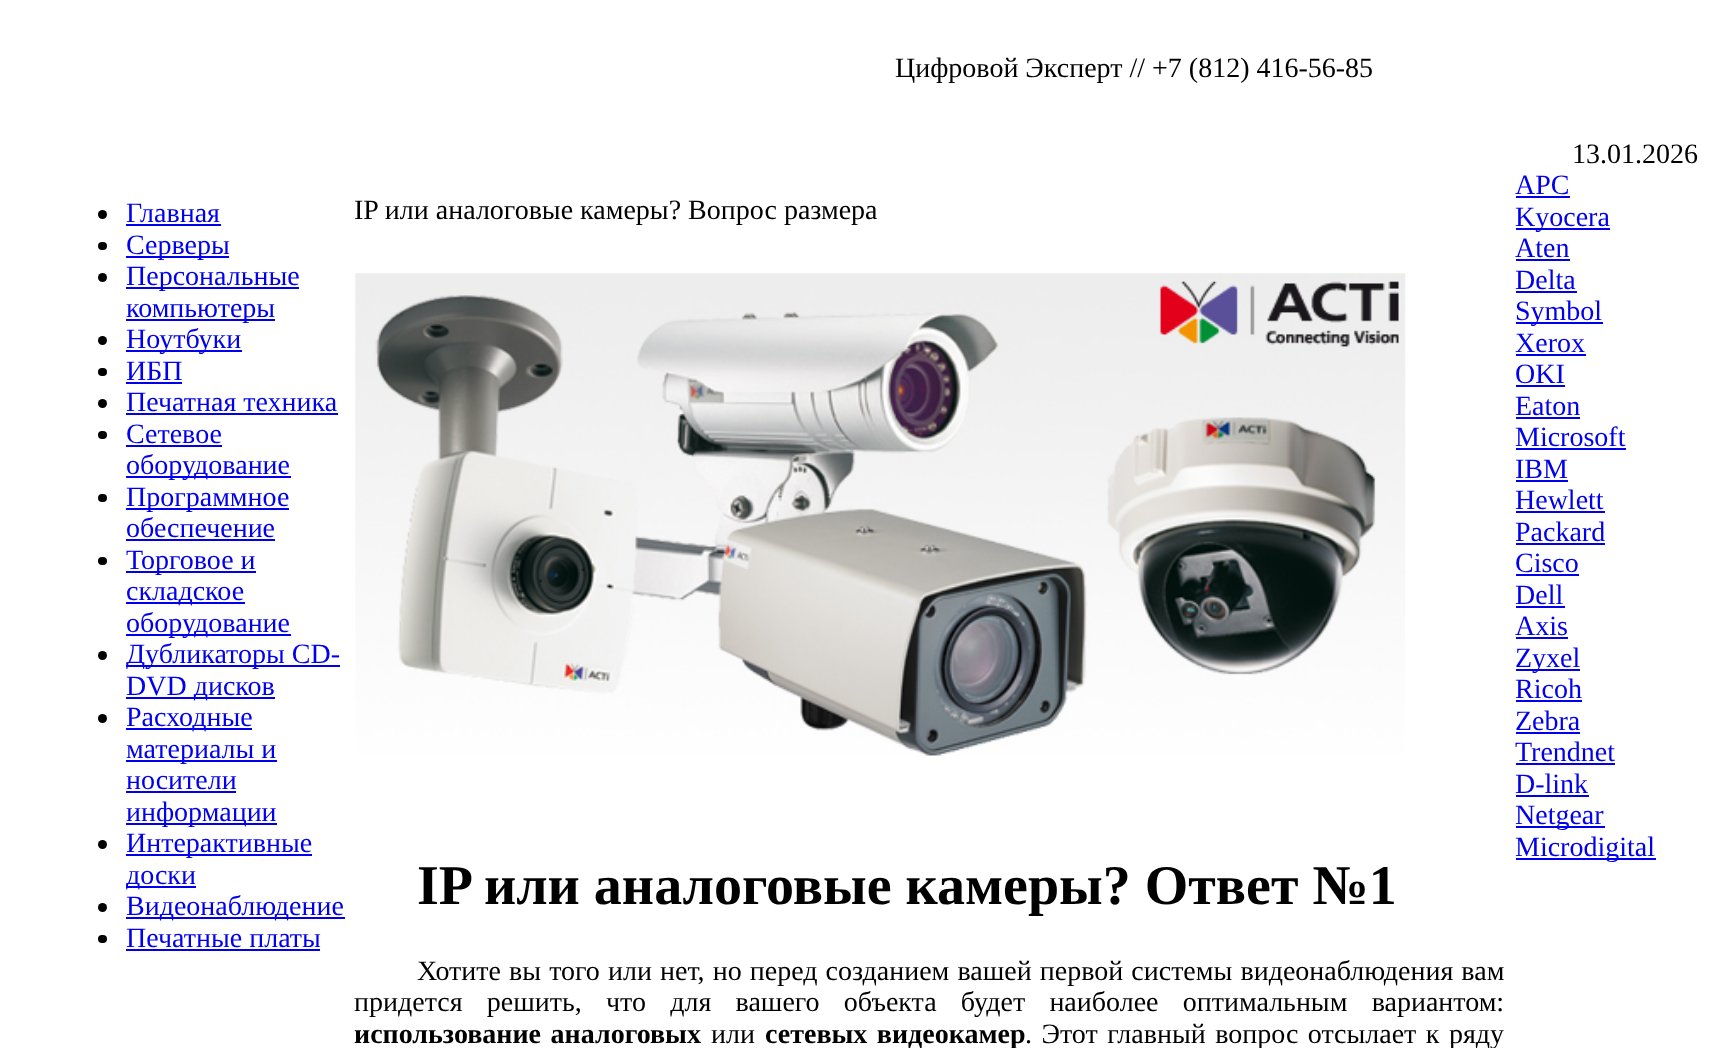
async function draw(canvas) {
	canvas.width = 1710;
	canvas.height = 1048;
	const c = canvas.getContext('2d');
	c.miterLimit = 4;
	c.fontKerning = 'normal';
	async function loadImage(src) {
		const img = new Image();
		img.src = src;
		await img.decode();
		return img;
	}

	c.fillStyle = '#fff';
	c.fillRect(0, 0, 1710, 1048);
	c.font = '28px Liberation Serif';
	c.fillStyle = '#000';
	c.fillText('Цифровой Эксперт // +7 (812) 416-56-85', 895, 77);
	c.fillText('13.01.2026', 1572, 163);
	c.beginPath();
	c.arc(102.5, 214.5, 4.5, 0, 2 * Math.PI);
	c.fill();
	c.fillStyle = '#00e';
	c.fillText('Главная', 126, 222);
	c.fillRect(126, 224, 95, 2);
	c.fillStyle = '#000';
	c.beginPath();
	c.roundRect(98, 242, 9, 8, 4);
	c.fill();
	c.fillStyle = '#00e';
	c.fillRect(126, 256, 103, 2);
	c.fillText('Серверы', 126, 254);
	c.fillStyle = '#000';
	c.beginPath();
	c.arc(102.5, 277.5, 4.5, 0, 2 * Math.PI);
	c.fill();
	c.fillStyle = '#00e';
	c.fillRect(126, 287, 173, 2);
	c.fillText('Персональные', 126, 285);
	c.fillRect(126, 319, 149, 2);
	c.fillText('компьютеры', 126, 317);
	c.fillStyle = '#000';
	c.beginPath();
	c.arc(102.5, 340.5, 4.5, 0, 2 * Math.PI);
	c.fill();
	c.fillStyle = '#00e';
	c.fillRect(126, 350, 116, 2);
	c.fillText('Ноутбуки', 126, 348);
	c.fillStyle = '#000';
	c.beginPath();
	c.roundRect(98, 368, 9, 8, 4);
	c.fill();
	c.fillStyle = '#00e';
	c.fillText('ИБП', 126, 380);
	c.fillRect(126, 382, 56, 2);
	c.fillStyle = '#000';
	c.beginPath();
	c.arc(102.5, 403.5, 4.5, 0, 2 * Math.PI);
	c.fill();
	c.fillStyle = '#00e';
	c.fillText('Печатная техника', 126, 411);
	c.fillRect(126, 413, 212, 2);
	c.fillStyle = '#000';
	c.beginPath();
	c.roundRect(98, 431, 9, 8, 4);
	c.fill();
	c.fillStyle = '#00e';
	c.fillText('Сетевое', 126, 443);
	c.fillRect(126, 445, 96, 2);
	c.fillRect(126, 476, 165, 2);
	c.fillText('оборудование', 126, 474);
	c.fillStyle = '#000';
	c.beginPath();
	c.roundRect(98, 494, 9, 8, 4);
	c.fill();
	c.fillStyle = '#00e';
	c.fillRect(126, 508, 163, 2);
	c.fillText('Программное', 126, 506);
	c.fillText('обеспечение', 126, 537);
	c.fillRect(126, 539, 149, 2);
	c.fillStyle = '#000';
	c.beginPath();
	c.roundRect(98, 557, 9, 8, 4);
	c.fill();
	c.fillStyle = '#00e';
	c.fillRect(126, 571, 130, 2);
	c.fillText('Торговое и', 126, 569);
	c.fillRect(126, 602, 119, 2);
	c.fillText('складское', 126, 600);
	c.fillRect(126, 634, 165, 2);
	c.fillText('оборудование', 126, 632);
	c.fillStyle = '#000';
	c.beginPath();
	c.arc(102.5, 655.5, 4.5, 0, 2 * Math.PI);
	c.fill();
	c.fillStyle = '#00e';
	c.fillRect(126, 665, 214, 2);
	c.fillText('Дубликаторы CD-', 126, 663);
	c.fillRect(126, 697, 149, 2);
	c.fillText('DVD дисков', 126, 695);
	c.fillStyle = '#000';
	c.beginPath();
	c.arc(102.5, 718.5, 4.5, 0, 2 * Math.PI);
	c.fill();
	c.fillStyle = '#00e';
	c.fillRect(126, 728, 126, 2);
	c.fillText('Расходные', 126, 726);
	c.fillRect(126, 760, 151, 2);
	c.fillText('материалы и', 126, 758);
	c.fillText('носители', 126, 789);
	c.fillRect(126, 791, 110, 2);
	c.fillRect(126, 823, 151, 2);
	c.fillText('информации', 126, 821);
	c.fillStyle = '#000';
	c.beginPath();
	c.arc(102.5, 844.5, 4.5, 0, 2 * Math.PI);
	c.fill();
	c.fillStyle = '#00e';
	c.fillRect(126, 854, 186, 2);
	c.fillText('Интерактивные', 126, 852);
	c.fillRect(126, 886, 70, 2);
	c.fillText('доски', 126, 884);
	c.fillStyle = '#000';
	c.beginPath();
	c.arc(102.5, 907.5, 4.5, 0, 2 * Math.PI);
	c.fill();
	c.fillStyle = '#00e';
	c.fillRect(126, 917, 219, 2);
	c.fillText('Видеонаблюдение', 126, 915);
	c.fillStyle = '#000';
	c.beginPath();
	c.roundRect(98, 935, 9, 8, 4);
	c.fill();
	c.fillStyle = '#00e';
	c.fillText('Печатные платы', 126, 947);
	c.fillRect(126, 949, 194, 2);
	c.fillStyle = '#000';
	c.fillText('IP или аналоговые камеры? Вопрос размера', 354, 219);
	c.drawImage(await loadImage('img1.png'), 355, 273, 1051, 483);
	c.font = 'bold 56px Liberation Serif';
	c.fillText('IP или аналоговые камеры? Ответ №1', 417, 904);
	c.wordSpacing = '1.1px';
	c.font = '28px Liberation Serif';
	c.fillText('Хотите вы того или нет, но перед созданием вашей первой системы видеонаблюдения вам', 417, 980);
	c.wordSpacing = '17.25px';
	c.fillText('придется решить, что для вашего объекта будет наиболее оптимальным вариантом:', 354, 1011);
	c.wordSpacing = '2.5px';
	c.font = 'bold 28px Liberation Serif';
	c.fillText('использование аналоговых', 354, 1043);
	c.wordSpacing = '0px';
	c.font = '28px Liberation Serif';
	c.fillText('или', 711, 1043);
	c.wordSpacing = '2.5px';
	c.font = 'bold 28px Liberation Serif';
	c.fillText('сетевых видеокамер', 765, 1043);
	c.font = '28px Liberation Serif';
	c.fillText('. Этот главный вопрос отсылает к ряду', 1025, 1043);
	c.wordSpacing = '0px';
	c.fillStyle = '#00e';
	c.fillText('APC', 1515, 194);
	c.fillRect(1516, 196, 54, 2);
	c.fillRect(1516, 228, 94, 2);
	c.fillText('Kyocera', 1515, 226);
	c.fillText('Aten', 1515, 257);
	c.fillRect(1516, 259, 54, 2);
	c.fillText('Delta', 1515, 289);
	c.fillRect(1516, 291, 61, 2);
	c.fillRect(1516, 322, 87, 2);
	c.fillText('Symbol', 1515, 320);
	c.fillText('Xerox', 1515, 352);
	c.fillRect(1516, 354, 70, 2);
	c.fillText('OKI', 1515, 383);
	c.fillRect(1516, 385, 49, 2);
	c.fillText('Eaton', 1515, 415);
	c.fillRect(1516, 417, 64, 2);
	c.fillText('Microsoft', 1515, 446);
	c.fillRect(1516, 448, 110, 2);
	c.fillText('IBM', 1515, 478);
	c.fillRect(1516, 480, 52, 2);
	c.fillText('Hewlett', 1515, 509);
	c.fillRect(1516, 511, 89, 2);
	c.fillText('Packard', 1515, 541);
	c.fillRect(1516, 543, 89, 2);
	c.fillText('Cisco', 1515, 572);
	c.fillRect(1516, 574, 63, 2);
	c.fillText('Dell', 1515, 604);
	c.fillRect(1516, 606, 49, 2);
	c.fillText('Axis', 1515, 635);
	c.fillRect(1516, 637, 52, 2);
	c.fillRect(1516, 669, 64, 2);
	c.fillText('Zyxel', 1515, 667);
	c.fillText('Ricoh', 1515, 698);
	c.fillRect(1516, 700, 66, 2);
	c.fillText('Zebra', 1515, 730);
	c.fillRect(1516, 732, 64, 2);
	c.fillText('Trendnet', 1515, 761);
	c.fillRect(1516, 763, 99, 2);
	c.fillText('D-link', 1515, 793);
	c.fillRect(1516, 795, 73, 2);
	c.fillRect(1516, 826, 89, 2);
	c.fillText('Netgear', 1515, 824);
	c.fillRect(1516, 858, 140, 2);
	c.fillText('Microdigital', 1515, 856);
}

draw(document.querySelector('canvas'));
